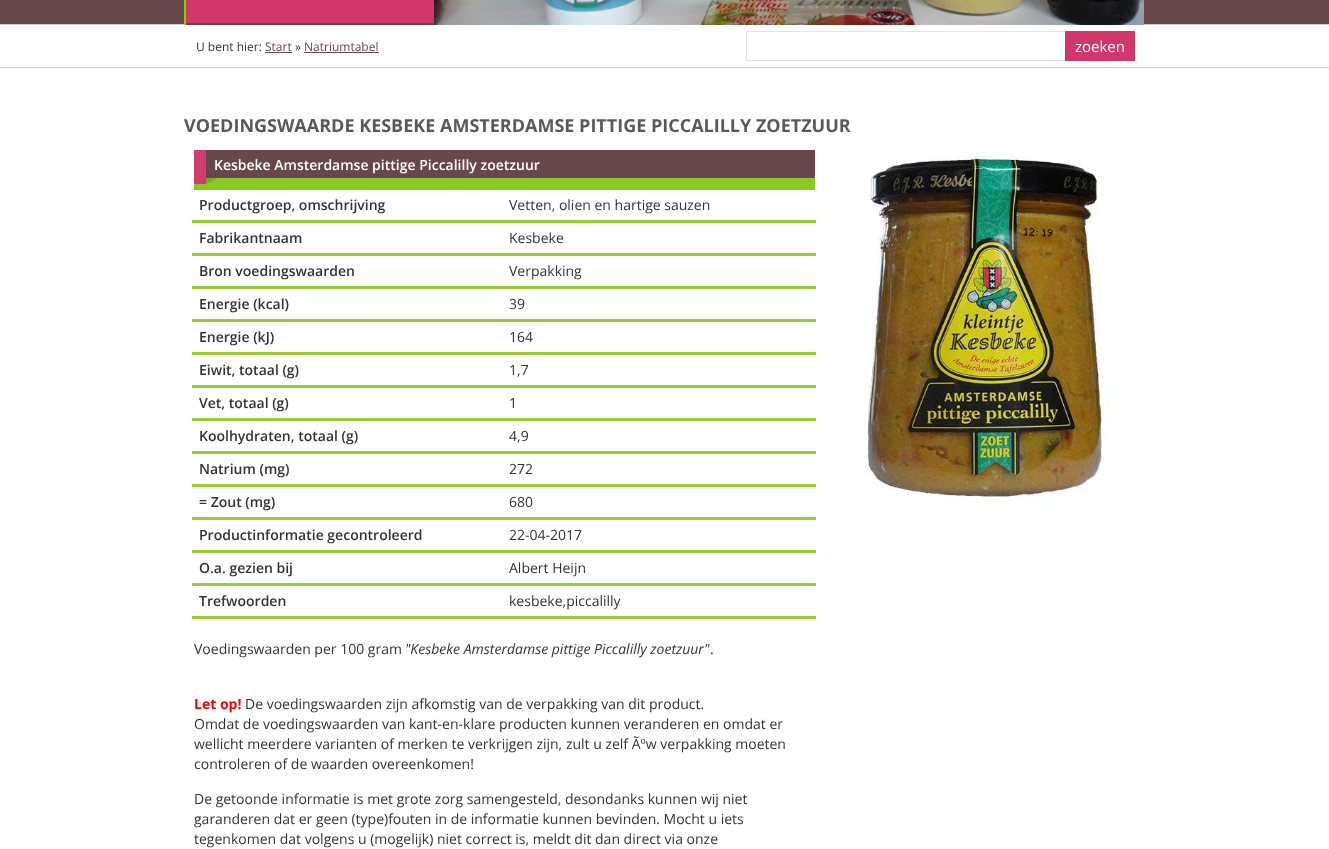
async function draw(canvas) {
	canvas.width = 1329;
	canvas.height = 849;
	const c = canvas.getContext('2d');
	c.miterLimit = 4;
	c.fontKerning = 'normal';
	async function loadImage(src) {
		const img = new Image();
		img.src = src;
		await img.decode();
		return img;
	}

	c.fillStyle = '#fff';
	c.fillRect(0, 0, 1329, 849);
	c.drawImage(await loadImage('img1.png'), 0, 0, 1329, 68);
	for (const [x, y, w, h, color] of [
		[184, 0, 2, 25, '#83d100'],
		[186, 0, 248, 23, '#d2376b'],
		[186, 23, 248, 2, '#684748'],
	]) {
		c.fillStyle = color;
		c.fillRect(x, y, w, h);
	}
	c.drawImage(await loadImage('img2.png'), 434, 0, 710, 25);
	c.font = '12px Open Sans';
	c.fillStyle = '#333';
	c.fillText('U bent hier:', 196, 51);
	c.fillStyle = '#68484b';
	c.fillText('Start', 265, 51);
	c.fillRect(265, 52, 27, 1);
	c.fillStyle = '#333';
	c.fillText('»', 295, 51);
	c.fillStyle = '#68484b';
	c.fillText('Natriumtabel', 304, 51);
	c.fillRect(304, 52, 75, 1);
	c.strokeStyle = '#e4e4e4';
	c.strokeRect(746.5, 31.5, 388, 29);
	c.fillStyle = '#d2376b';
	c.fillRect(1065, 31, 70, 30);
	c.font = '15px Open Sans';
	c.fillStyle = '#fff';
	c.fillText('zoeken', 1075, 52);
	c.font = 'bold 18px Open Sans';
	c.fillStyle = '#595959';
	c.fillText('VOEDINGSWAARDE KESBEKE AMSTERDAMSE PITTIGE PICCALILLY ZOETZUUR', 184, 132);
	c.drawImage(await loadImage('img3.png'), 194, 150, 621, 40);
	c.font = '600 14px Open Sans';
	c.fillStyle = '#fff';
	c.fillText('Kesbeke Amsterdamse pittige Piccalilly zoetzuur', 214, 170);
	c.fillStyle = '#333';
	c.fillText('Productgroep, omschrijving', 199, 210);
	c.fillStyle = '#9c3';
	c.fillRect(192, 220, 624, 3);
	c.font = '14px Open Sans';
	c.fillStyle = '#333';
	c.fillText('Vetten, olien en hartige sauzen', 509, 210);
	c.font = '600 14px Open Sans';
	c.fillText('Fabrikantnaam', 199, 243);
	c.fillStyle = '#9c3';
	c.fillRect(192, 253, 624, 3);
	c.font = '14px Open Sans';
	c.fillStyle = '#333';
	c.fillText('Kesbeke', 509, 243);
	c.font = '600 14px Open Sans';
	c.fillText('Bron voedingswaarden', 199, 276);
	c.fillStyle = '#9c3';
	c.fillRect(192, 286, 624, 3);
	c.font = '14px Open Sans';
	c.fillStyle = '#333';
	c.fillText('Verpakking', 509, 276);
	c.font = '600 14px Open Sans';
	c.fillText('Energie (kcal)', 199, 309);
	c.fillStyle = '#9c3';
	c.fillRect(192, 319, 624, 3);
	c.font = '14px Open Sans';
	c.fillStyle = '#333';
	c.fillText('39', 509, 309);
	c.font = '600 14px Open Sans';
	c.fillText('Energie (kJ)', 199, 342);
	c.fillStyle = '#9c3';
	c.fillRect(192, 352, 624, 3);
	c.font = '14px Open Sans';
	c.fillStyle = '#333';
	c.fillText('164', 509, 342);
	c.font = '600 14px Open Sans';
	c.fillText('Eiwit, totaal (g)', 199, 375);
	c.fillStyle = '#9c3';
	c.fillRect(192, 385, 624, 3);
	c.font = '14px Open Sans';
	c.fillStyle = '#333';
	c.fillText('1,7', 509, 375);
	c.font = '600 14px Open Sans';
	c.fillText('Vet, totaal (g)', 199, 408);
	c.fillStyle = '#9c3';
	c.fillRect(192, 418, 624, 3);
	c.font = '14px Open Sans';
	c.fillStyle = '#333';
	c.fillText('1', 509, 408);
	c.font = '600 14px Open Sans';
	c.fillText('Koolhydraten, totaal (g)', 199, 441);
	c.fillStyle = '#9c3';
	c.fillRect(192, 451, 624, 3);
	c.font = '14px Open Sans';
	c.fillStyle = '#333';
	c.fillText('4,9', 509, 441);
	c.font = '600 14px Open Sans';
	c.fillText('Natrium (mg)', 199, 474);
	c.fillStyle = '#9c3';
	c.fillRect(192, 484, 624, 3);
	c.font = '14px Open Sans';
	c.fillStyle = '#333';
	c.fillText('272', 509, 474);
	c.font = '600 14px Open Sans';
	c.fillText('= Zout (mg)', 199, 507);
	c.fillStyle = '#9c3';
	c.fillRect(192, 517, 624, 3);
	c.font = '14px Open Sans';
	c.fillStyle = '#333';
	c.fillText('680', 509, 507);
	c.font = '600 14px Open Sans';
	c.fillText('Productinformatie gecontroleerd', 199, 540);
	c.fillStyle = '#9c3';
	c.fillRect(192, 550, 624, 3);
	c.font = '14px Open Sans';
	c.fillStyle = '#333';
	c.fillText('22-04-2017', 509, 540);
	c.font = '600 14px Open Sans';
	c.fillText('O.a. gezien bij', 199, 573);
	c.fillStyle = '#9c3';
	c.fillRect(192, 583, 624, 3);
	c.font = '14px Open Sans';
	c.fillStyle = '#333';
	c.fillText('Albert Heijn', 509, 573);
	c.font = '600 14px Open Sans';
	c.fillText('Trefwoorden', 199, 606);
	c.fillStyle = '#9c3';
	c.fillRect(192, 616, 624, 3);
	c.font = '14px Open Sans';
	c.fillStyle = '#333';
	c.fillText('kesbeke,piccalilly', 509, 606);
	c.fillText('Voedingswaarden per 100 gram', 194, 654);
	c.font = 'italic 14px Open Sans';
	c.fillText('"Kesbeke Amsterdamse pittige Piccalilly zoetzuur"', 405, 654);
	c.font = '14px Open Sans';
	c.fillText('.', 710, 654);
	c.font = 'bold 14px Open Sans';
	c.fillStyle = '#f00';
	c.fillText('Let op!', 194, 709);
	c.font = '14px Open Sans';
	c.fillStyle = '#333';
	for (const [text, x, y] of [
		['De voedingswaarden zijn afkomstig van de verpakking van dit product.', 245, 709],
		['Omdat de voedingswaarden van kant-en-klare producten kunnen veranderen en omdat er', 194, 729],
		['wellicht meerdere varianten of merken te verkrijgen zijn, zult u zelf Ãºw verpakking moeten', 194, 749],
		['controleren of de waarden overeenkomen!', 194, 769],
		['De getoonde informatie is met grote zorg samengesteld, desondanks kunnen wij niet', 194, 804],
		['garanderen dat er geen (type)fouten in de informatie kunnen bevinden. Mocht u iets', 194, 824],
		['tegenkomen dat volgens u (mogelijk) niet correct is, meldt dit dan direct via onze', 194, 844],
	]) {
		c.fillText(text, x, y);
	}
	c.drawImage(await loadImage('img4.png'), 866, 150, 244, 352);
}

draw(document.querySelector('canvas'));
